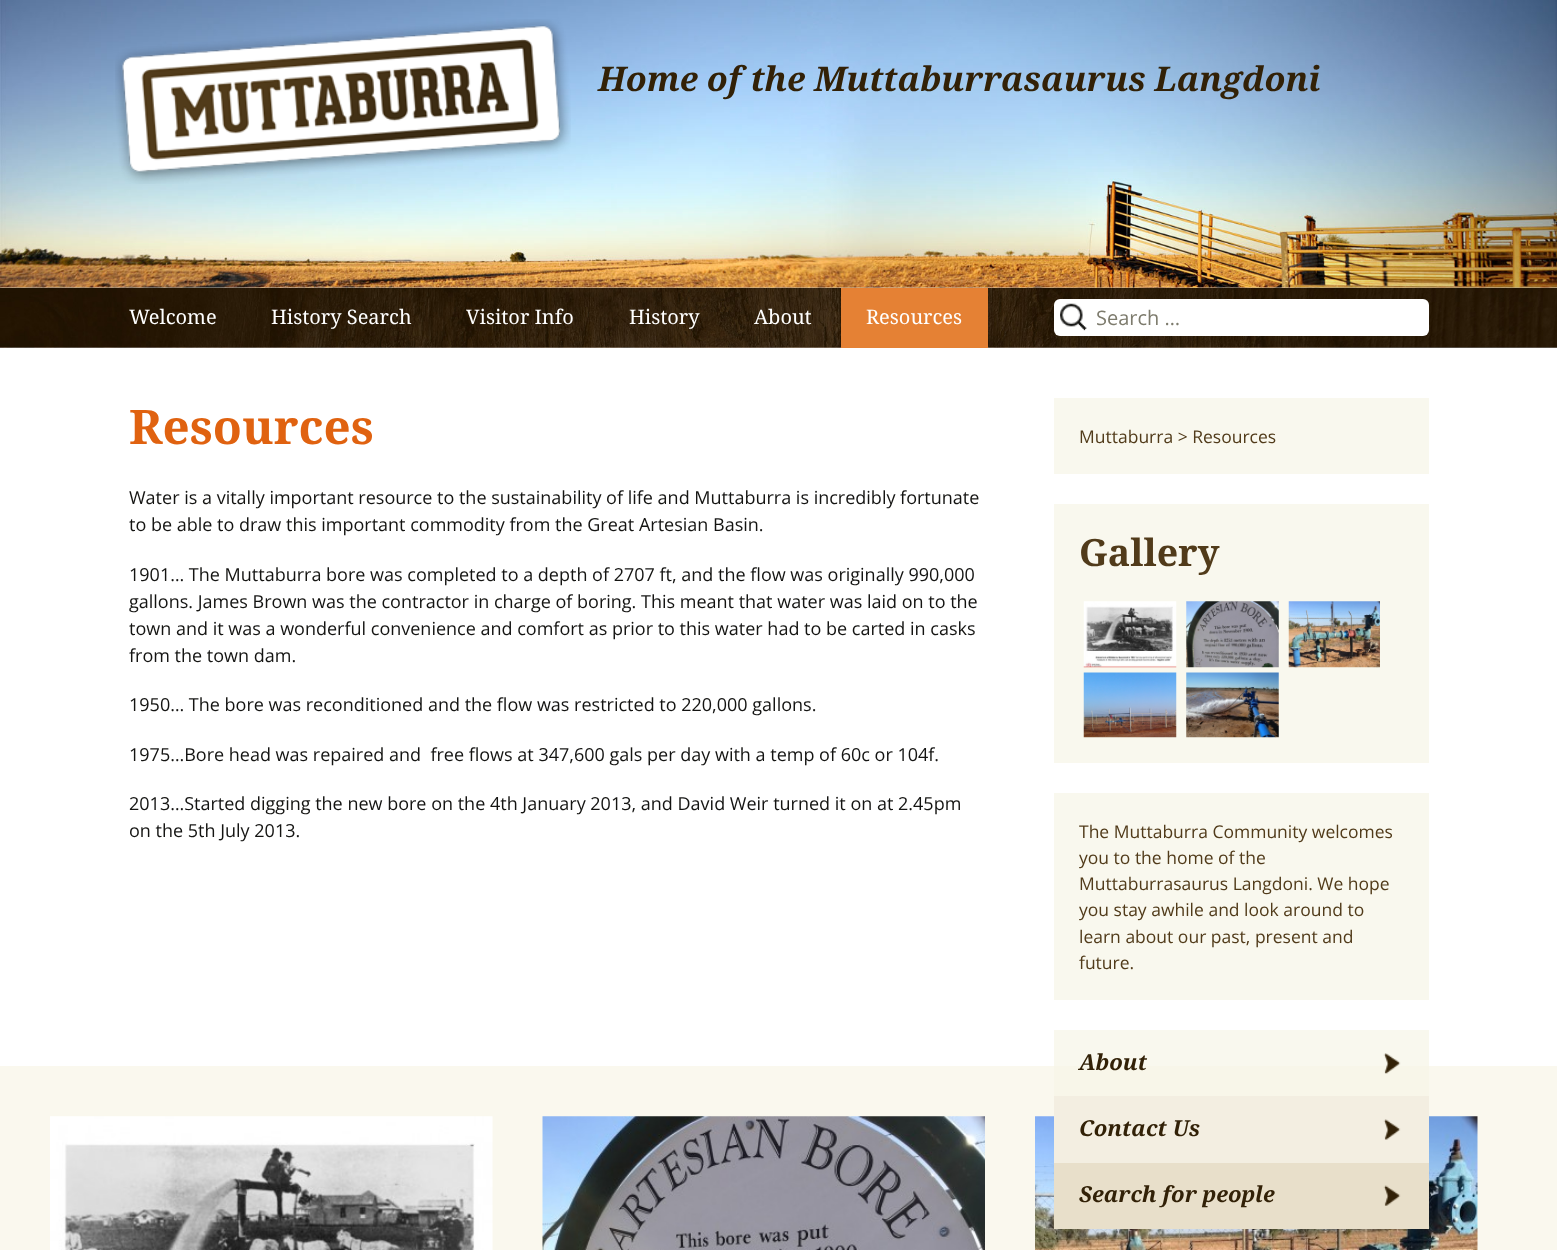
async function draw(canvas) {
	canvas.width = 1557;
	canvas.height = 1250;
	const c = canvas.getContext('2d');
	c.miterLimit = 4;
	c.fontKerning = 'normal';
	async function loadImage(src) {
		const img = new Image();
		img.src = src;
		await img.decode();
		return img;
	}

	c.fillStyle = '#fff';
	c.fillRect(0, 0, 1557, 1250);
	c.drawImage(await loadImage('img1.png'), 0, 287, 1557, 61);
	c.drawImage(await loadImage('img4.png'), 0, 287, 1557, 61);
	c.fillStyle = '#f7f5e7b3';
	c.fillRect(0, 287, 1557, 1);
	c.drawImage(await loadImage('img2.png'), 0, 0, 1557, 288);
	c.drawImage(await loadImage('img3.png'), 115, 19, 456, 165);
	c.font = 'italic bold 34px Droid Serif';
	c.fillStyle = '#322107';
	c.fillText('Home of the Muttaburrasaurus Langdoni', 598, 91);
	c.font = '20px Droid Serif';
	c.fillStyle = '#fff';
	for (const [text, x, y] of [
		['Welcome', 129, 324],
		['History Search', 271, 324],
		['Visitor Info', 466, 324],
		['History', 629, 324],
		['About', 754, 324],
	]) {
		c.fillText(text, x, y);
	}
	c.fillStyle = '#e58134';
	c.fillRect(841, 288, 147, 60);
	c.fillStyle = '#fff';
	c.fillText('Resources', 866, 324);
	c.beginPath();
	c.roundRect(1054, 299, 375, 37, 6);
	c.fill();
	c.drawImage(await loadImage('img5.png'), 1060, 303, 27, 28);
	c.font = '20px Open Sans';
	c.fillStyle = '#7d7b6d';
	c.fillText('Search …', 1096, 325);
	c.font = 'bold 47.5px Droid Serif';
	c.fillStyle = '#e06210';
	c.fillText('Resources', 129, 444);
	c.font = '18px Open Sans';
	c.fillStyle = '#141412';
	for (const [text, x, y] of [
		['Water is a vitally important resource to the sustainability of life and Muttaburra is incredibly fortunate', 129, 504],
		['to be able to draw this important commodity from the Great Artesian Basin.', 129, 531],
		['1901… The Muttaburra bore was completed to a depth of 2707 ft, and the flow was originally 990,000', 129, 581],
		['gallons. James Brown was the contractor in charge of boring. This meant that water was laid on to the', 129, 608],
		['town and it was a wonderful convenience and comfort as prior to this water had to be carted in casks', 129, 635],
		['from the town dam.', 129, 662],
		['1950… The bore was reconditioned and the flow was restricted to 220,000 gallons.', 129, 711],
		['1975…Bore head was repaired and  free flows at 347,600 gals per day with a temp of 60c or 104f.', 129, 761],
		['2013…Started digging the new bore on the 4th January 2013, and David Weir turned it on at 2.45pm', 129, 810],
		['on the 5th July 2013.', 129, 837],
	]) {
		c.fillText(text, x, y);
	}
	c.fillStyle = '#f9f8ee';
	c.fillRect(1054, 398, 375, 76);
	c.font = '17.5px Open Sans';
	c.fillStyle = '#513b1a';
	c.fillText('Muttaburra > Resources', 1079, 443);
	c.fillStyle = '#f9f8ee';
	c.fillRect(1054, 504, 375, 259);
	c.font = 'bold 37.5px Droid Serif';
	c.fillStyle = '#513b1a';
	c.fillText('Gallery', 1079, 566);
	c.drawImage(await loadImage('img6.png'), 1083, 601, 94, 67);
	c.drawImage(await loadImage('img7.png'), 1186, 601, 93, 67);
	c.drawImage(await loadImage('img8.png'), 1288, 601, 92, 67);
	c.drawImage(await loadImage('img9.png'), 1083, 672, 94, 66);
	c.drawImage(await loadImage('img10.png'), 1186, 672, 93, 66);
	c.fillStyle = '#f9f8ee';
	c.fillRect(1054, 793, 375, 207);
	c.font = '17.5px Open Sans';
	c.fillStyle = '#513b1a';
	for (const [text, x, y] of [
		['The Muttaburra Community welcomes', 1079, 838],
		['you to the home of the', 1079, 864],
		['Muttaburrasaurus Langdoni. We hope', 1079, 890],
		['you stay awhile and look around to', 1079, 916],
		['learn about our past, present and', 1079, 943],
		['future.', 1079, 969],
	]) {
		c.fillText(text, x, y);
	}
	c.fillStyle = '#faf8ee';
	c.fillRect(0, 1066, 1557, 184);
	c.fillStyle = '#f7f5e7b3';
	c.fillRect(1054, 1030, 375, 66);
	c.drawImage(await loadImage('img11.png'), 1383, 1053, 18, 21);
	c.font = 'italic bold 22px Droid Serif';
	c.fillStyle = '#322107';
	c.fillText('About', 1079, 1070);
	c.drawImage(await loadImage('img16.png'), 1035, 1116, 443, 134);
	c.fillStyle = '#f3eee1';
	c.fillRect(1054, 1096, 375, 67);
	c.drawImage(await loadImage('img12.png'), 1383, 1119, 18, 21);
	c.fillStyle = '#322107';
	c.fillText('Contact Us', 1079, 1136);
	c.fillStyle = '#e8dfca';
	c.fillRect(1054, 1163, 375, 66);
	c.drawImage(await loadImage('img13.png'), 1383, 1185, 18, 21);
	c.fillStyle = '#322107';
	c.fillText('Search for people', 1079, 1202);
	c.drawImage(await loadImage('img14.png'), 50, 1116, 443, 134);
	c.drawImage(await loadImage('img15.png'), 542, 1116, 443, 134);
}

draw(document.querySelector('canvas'));
